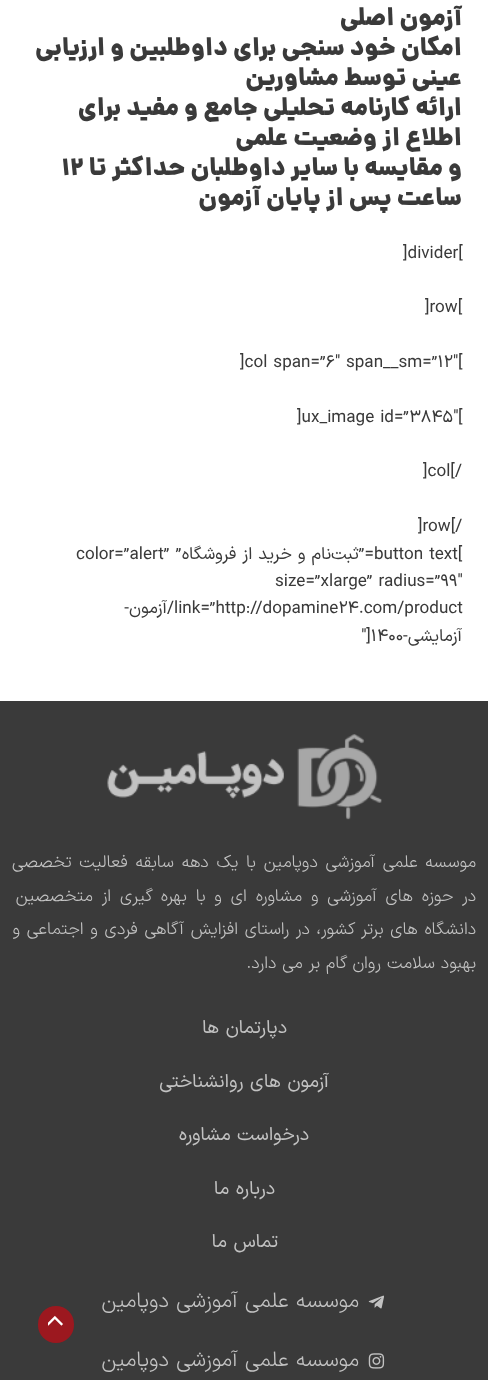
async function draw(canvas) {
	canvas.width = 488;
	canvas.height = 1380;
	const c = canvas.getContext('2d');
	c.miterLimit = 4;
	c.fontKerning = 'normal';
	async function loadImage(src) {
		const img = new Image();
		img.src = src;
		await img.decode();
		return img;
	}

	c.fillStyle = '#fff';
	c.fillRect(0, 0, 488, 1380);
	c.direction = 'rtl';
	c.font = '900 25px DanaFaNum';
	c.fillStyle = '#3a3a3a';
	for (const [text, x, y] of [
		['آزمون اصلی', 462, 25],
		['امکان خود سنجی برای داوطلبین و ارزیابی', 462, 55],
		['عینی توسط مشاورین', 462, 85],
		['ارائه کارنامه تحلیلی جامع و مفید برای', 462, 115],
		['اطلاع از وضعیت علمی', 462, 145],
		['و مقایسه با سایر داوطلبان حداکثر تا', 462, 175],
	]) {
		c.fillText(text, x, y);
	}
	c.direction = 'ltr';
	c.fillText('12', 62, 175);
	c.direction = 'rtl';
	c.fillText('ساعت پس از پایان آزمون', 462, 205);
	c.direction = 'ltr';
	c.font = '17.1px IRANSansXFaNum';
	for (const [text, x, y] of [
		[']divider[', 403, 258],
		[']row[', 425, 312],
		[']col span=”6″ span__sm=”12″[', 240, 367],
		[']ux_image id=”3845″[', 297, 422],
		[']col[/', 423, 476],
		[']row[/', 418, 531],
		['button text[', 374, 559],
	]) {
		c.fillText(text, x, y);
	}
	c.direction = 'rtl';
	c.fillText('=”ثبت‌نام و خرید از فروشگاه”', 374, 559);
	c.direction = 'ltr';
	for (const [text, x, y] of [
		['color=”alert”', 76, 559],
		['size=”xlarge” radius=”99″', 275, 586],
		['link=”http://dopamine24.com/product', 174, 613],
	]) {
		c.fillText(text, x, y);
	}
	c.direction = 'rtl';
	c.fillText('/آزمون-', 174, 613);
	c.fillText('آزمایشی-', 462, 641);
	c.direction = 'ltr';
	c.fillText('″]1400', 361, 641);
	c.fillRect(0, 701, 488, 679);
	c.drawImage(await loadImage('img1.png'), 107, 734, 275, 86);
	c.wordSpacing = '1.75px';
	c.direction = 'rtl';
	c.font = '300 17.1px IRANSansXFaNum';
	c.fillStyle = '#c2c2c2';
	c.fillText('موسسه علمی آموزشی دوپامین با یک دهه سابقه فعالیت تخصصی', 476, 867);
	c.wordSpacing = '2.9px';
	c.fillText('در حوزه های آموزشی و مشاوره ای و با بهره گیری از متخصصین', 476, 901);
	c.wordSpacing = '0.75px';
	c.fillText('دانشگاه های برتر کشور، در راستای افزایش آگاهی فردی و اجتماعی و', 476, 934);
	c.wordSpacing = '0px';
	c.fillText('بهبود سلامت روان گام بر می دارد.', 476, 968);
	c.font = '18.75px IRANSansXFaNum';
	for (const [text, x, y] of [
		['دپارتمان ها', 287, 1033],
		['آزمون های روانشناختی', 329, 1087],
		['درخواست مشاوره', 309, 1140],
		['درباره ما', 275, 1194],
		['تماس ما', 278, 1247],
	]) {
		c.fillText(text, x, y);
	}
	c.drawImage(await loadImage('img2.png'), 368, 1295, 16, 14);
	c.font = '300 21.25px IRANSansXFaNum';
	c.fillText('موسسه علمی آموزشی دوپامین', 359, 1307);
	c.drawImage(await loadImage('img3.png'), 368, 1353, 17, 16);
	c.fillText('موسسه علمی آموزشی دوپامین', 359, 1366);
	c.fillStyle = '#9c181f';
	c.beginPath();
	c.roundRect(38, 1306, 36, 37, 18);
	c.fill();
	c.drawImage(await loadImage('img4.png'), 48, 1315, 15, 11);
}

draw(document.querySelector('canvas'));
